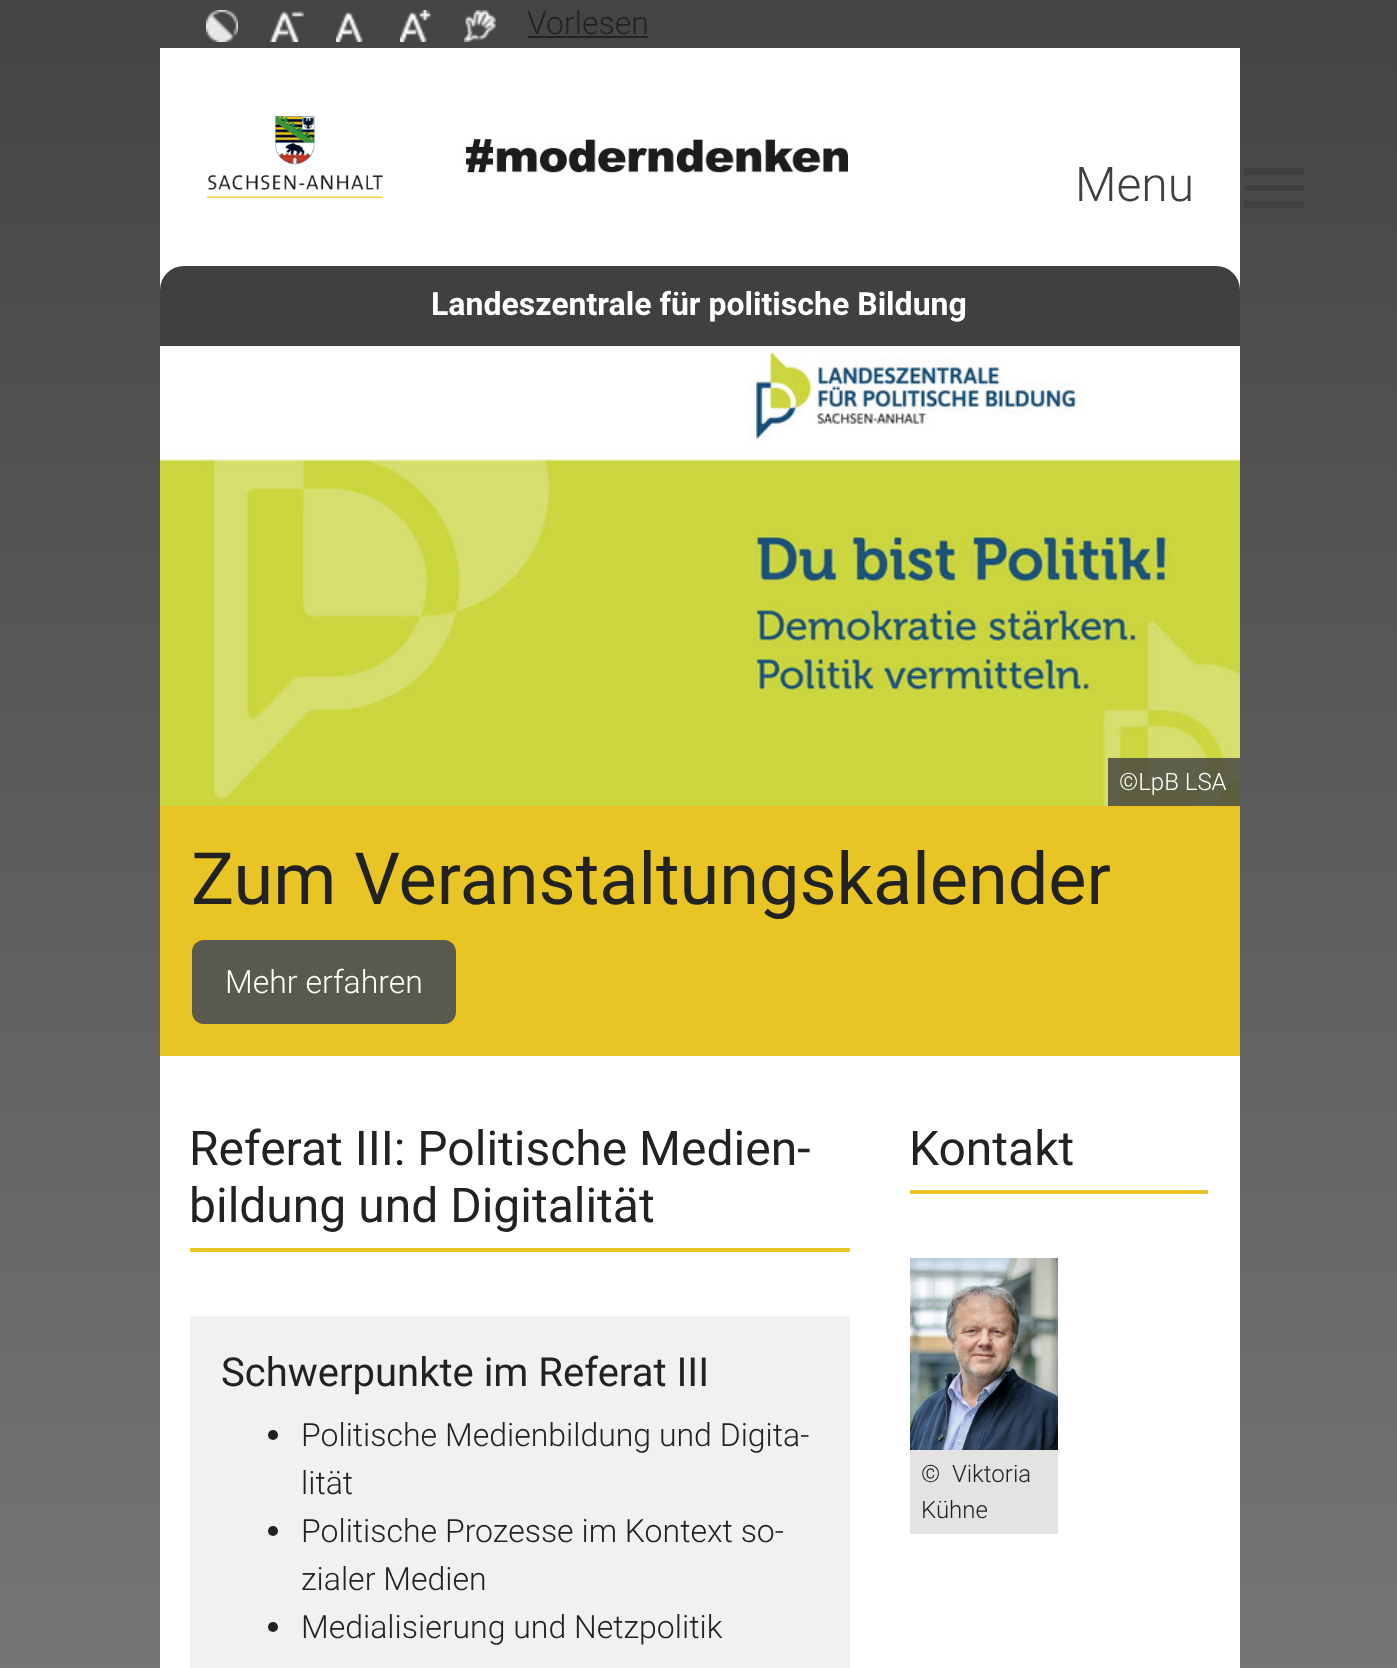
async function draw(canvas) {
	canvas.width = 1397;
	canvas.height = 1668;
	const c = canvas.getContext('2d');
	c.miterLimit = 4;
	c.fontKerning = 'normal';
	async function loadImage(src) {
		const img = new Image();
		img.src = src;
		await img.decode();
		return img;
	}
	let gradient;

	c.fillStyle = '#fff';
	c.fillRect(0, 0, 1397, 1668);
	gradient = c.createLinearGradient(699, 0, 699, 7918);
	gradient.addColorStop(0, '#444');
	gradient.addColorStop(0.3, '#8c8a8c');
	c.fillStyle = gradient;
	c.fillRect(0, 0, 1397, 1668);
	c.drawImage(await loadImage('img1.png'), 206, 10, 32, 32);
	c.drawImage(await loadImage('img2.png'), 270, 11, 34, 31);
	c.drawImage(await loadImage('img3.png'), 336, 11, 27, 31);
	c.drawImage(await loadImage('img4.png'), 400, 10, 32, 32);
	c.drawImage(await loadImage('img5.png'), 464, 10, 32, 32);
	c.font = '300 32px Roboto';
	c.fillStyle = '#222';
	c.fillText('Vorlesen', 527, 34);
	c.fillRect(528, 36, 120, 2);
	c.fillStyle = '#fff';
	c.fillRect(160, 48, 1080, 242);
	c.font = '300 48px Roboto';
	c.fillStyle = '#404040';
	c.fillText('Menu', 1075, 201);
	c.beginPath();
	c.moveTo(1244, 168);
	c.lineTo(1304, 168);
	c.lineTo(1304, 175);
	c.lineTo(1244, 175);
	c.closePath();
	c.moveTo(1244, 191);
	c.lineTo(1244, 185);
	c.lineTo(1304, 185);
	c.lineTo(1304, 191);
	c.closePath();
	c.moveTo(1244, 208);
	c.lineTo(1244, 201);
	c.lineTo(1304, 201);
	c.lineTo(1304, 208);
	c.closePath();
	c.fill();
	c.drawImage(await loadImage('img6.png'), 206, 116, 178, 82);
	c.drawImage(await loadImage('img7.png'), 462, 139, 386, 36);
	c.beginPath();
	c.roundRect(160, 266, 1080, 80, [24, 24, 0, 0]);
	c.fill();
	c.font = 'bold 32px Roboto';
	c.fillStyle = '#fff';
	c.fillText('Landeszentrale für politische Bildung', 431, 315);
	c.drawImage(await loadImage('img8.png'), 160, 346, 1080, 460);
	c.fillStyle = '#404040cc';
	c.fillRect(1108, 758, 132, 48);
	c.font = '300 24px Roboto';
	c.fillStyle = '#fff';
	c.fillText('©LpB LSA', 1119, 790);
	c.fillStyle = '#e8c425';
	c.fillRect(160, 806, 1080, 250);
	c.font = '72px Roboto';
	c.fillStyle = '#222';
	c.fillText('Zum Veranstaltungskalender', 191, 904);
	c.fillStyle = '#595a4d';
	c.beginPath();
	c.roundRect(193, 941, 262, 82, 11);
	c.fill();
	c.strokeStyle = '#595a4d';
	c.lineWidth = 2;
	c.stroke();
	c.font = '300 32px Roboto';
	c.fillStyle = '#fff';
	c.fillText('Mehr erfahren', 225, 993);
	c.fillRect(160, 1056, 1080, 612);
	c.fillStyle = '#e8c425';
	c.fillRect(190, 1248, 660, 4);
	c.font = '48px Roboto';
	c.fillStyle = '#222';
	c.fillText('Referat III: Politische Medien-', 189, 1165);
	c.fillText('bildung und Digitalität', 189, 1222);
	c.fillStyle = '#f1f1f0';
	c.fillRect(190, 1316, 660, 352);
	c.font = '40px Roboto';
	c.fillStyle = '#222';
	c.fillText('Schwerpunkte im Referat III', 221, 1386);
	c.beginPath();
	c.arc(273, 1435, 5, 0, 2 * Math.PI);
	c.fill();
	c.font = '300 32px Roboto';
	c.fillText('Politische Medienbildung und Digita-', 301, 1446);
	c.fillText('lität', 301, 1494);
	c.beginPath();
	c.arc(273, 1531, 5, 0, 2 * Math.PI);
	c.fill();
	c.fillText('Politische Prozesse im Kontext so-', 301, 1542);
	c.fillText('zialer Medien', 301, 1590);
	c.beginPath();
	c.arc(273, 1627, 5, 0, 2 * Math.PI);
	c.fill();
	c.fillText('Medialisierung und Netzpolitik', 301, 1638);
	c.fillStyle = '#e8c425';
	c.fillRect(910, 1190, 298, 4);
	c.font = '48px Roboto';
	c.fillStyle = '#222';
	c.fillText('Kontakt', 909, 1165);
	c.drawImage(await loadImage('img9.png'), 910, 1258, 148, 192);
	c.fillStyle = '#e3e3e1';
	c.fillRect(910, 1450, 148, 84);
	c.font = '300 24px Roboto';
	c.fillStyle = '#222';
	c.fillText('©  Viktoria', 921, 1482);
	c.fillText('Kühne', 921, 1518);
}

draw(document.querySelector('canvas'));
